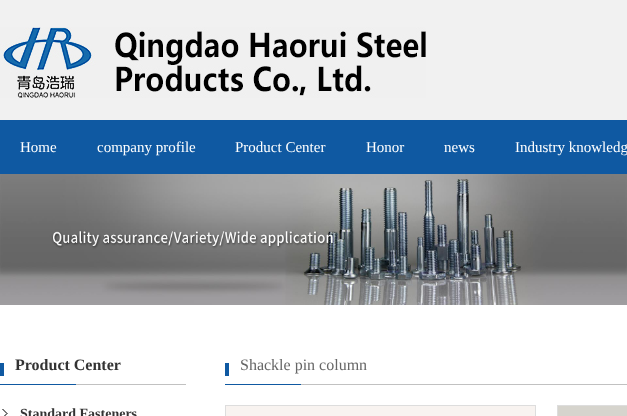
async function draw(canvas) {
	canvas.width = 627;
	canvas.height = 416;
	const c = canvas.getContext('2d');
	c.miterLimit = 4;
	c.fontKerning = 'normal';
	async function loadImage(src) {
		const img = new Image();
		img.src = src;
		await img.decode();
		return img;
	}

	c.fillStyle = '#fff';
	c.fillRect(0, 0, 627, 416);
	c.fillStyle = '#f1f1f1';
	c.fillRect(0, 0, 627, 120);
	c.drawImage(await loadImage('img1.png'), 0, 27, 426, 71);
	c.fillStyle = '#0f59a2';
	c.fillRect(0, 120, 627, 54);
	c.font = '15px Liberation Serif';
	c.fillStyle = '#fff';
	for (const [text, x, y] of [
		['Home', 20, 152],
		['company profile', 97, 152],
		['Product Center', 235, 152],
		['Honor', 366, 152],
		['news', 444, 152],
		['Industry knowledg', 515, 152],
	]) {
		c.fillText(text, x, y);
	}
	c.drawImage(await loadImage('img2.png'), 0, 174, 627, 131);
	c.drawImage(await loadImage('img3.png'), 0, 363, 186, 22);
	c.font = 'bold 16px Liberation Serif';
	c.fillStyle = '#333';
	c.fillText('Product Center', 15, 370);
	c.drawImage(await loadImage('img4.png'), 2, 409, 6, 7);
	c.font = 'bold 14px Liberation Serif';
	c.fillText('Standard Fasteners', 20, 418);
	c.drawImage(await loadImage('img5.png'), 225, 363, 402, 22);
	c.font = '16px Liberation Serif';
	c.fillStyle = '#666';
	c.fillText('Shackle pin column', 240, 370);
	c.strokeStyle = '#ddd';
	c.strokeRect(225.5, 405.5, 310, 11);
	c.fillStyle = '#f8f3f0';
	c.fillRect(226, 406, 309, 10);
	c.strokeRect(557.5, 405.5, 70, 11);
	c.fillStyle = '#d6d4cd';
	c.fillRect(558, 406, 69, 10);
}

draw(document.querySelector('canvas'));
